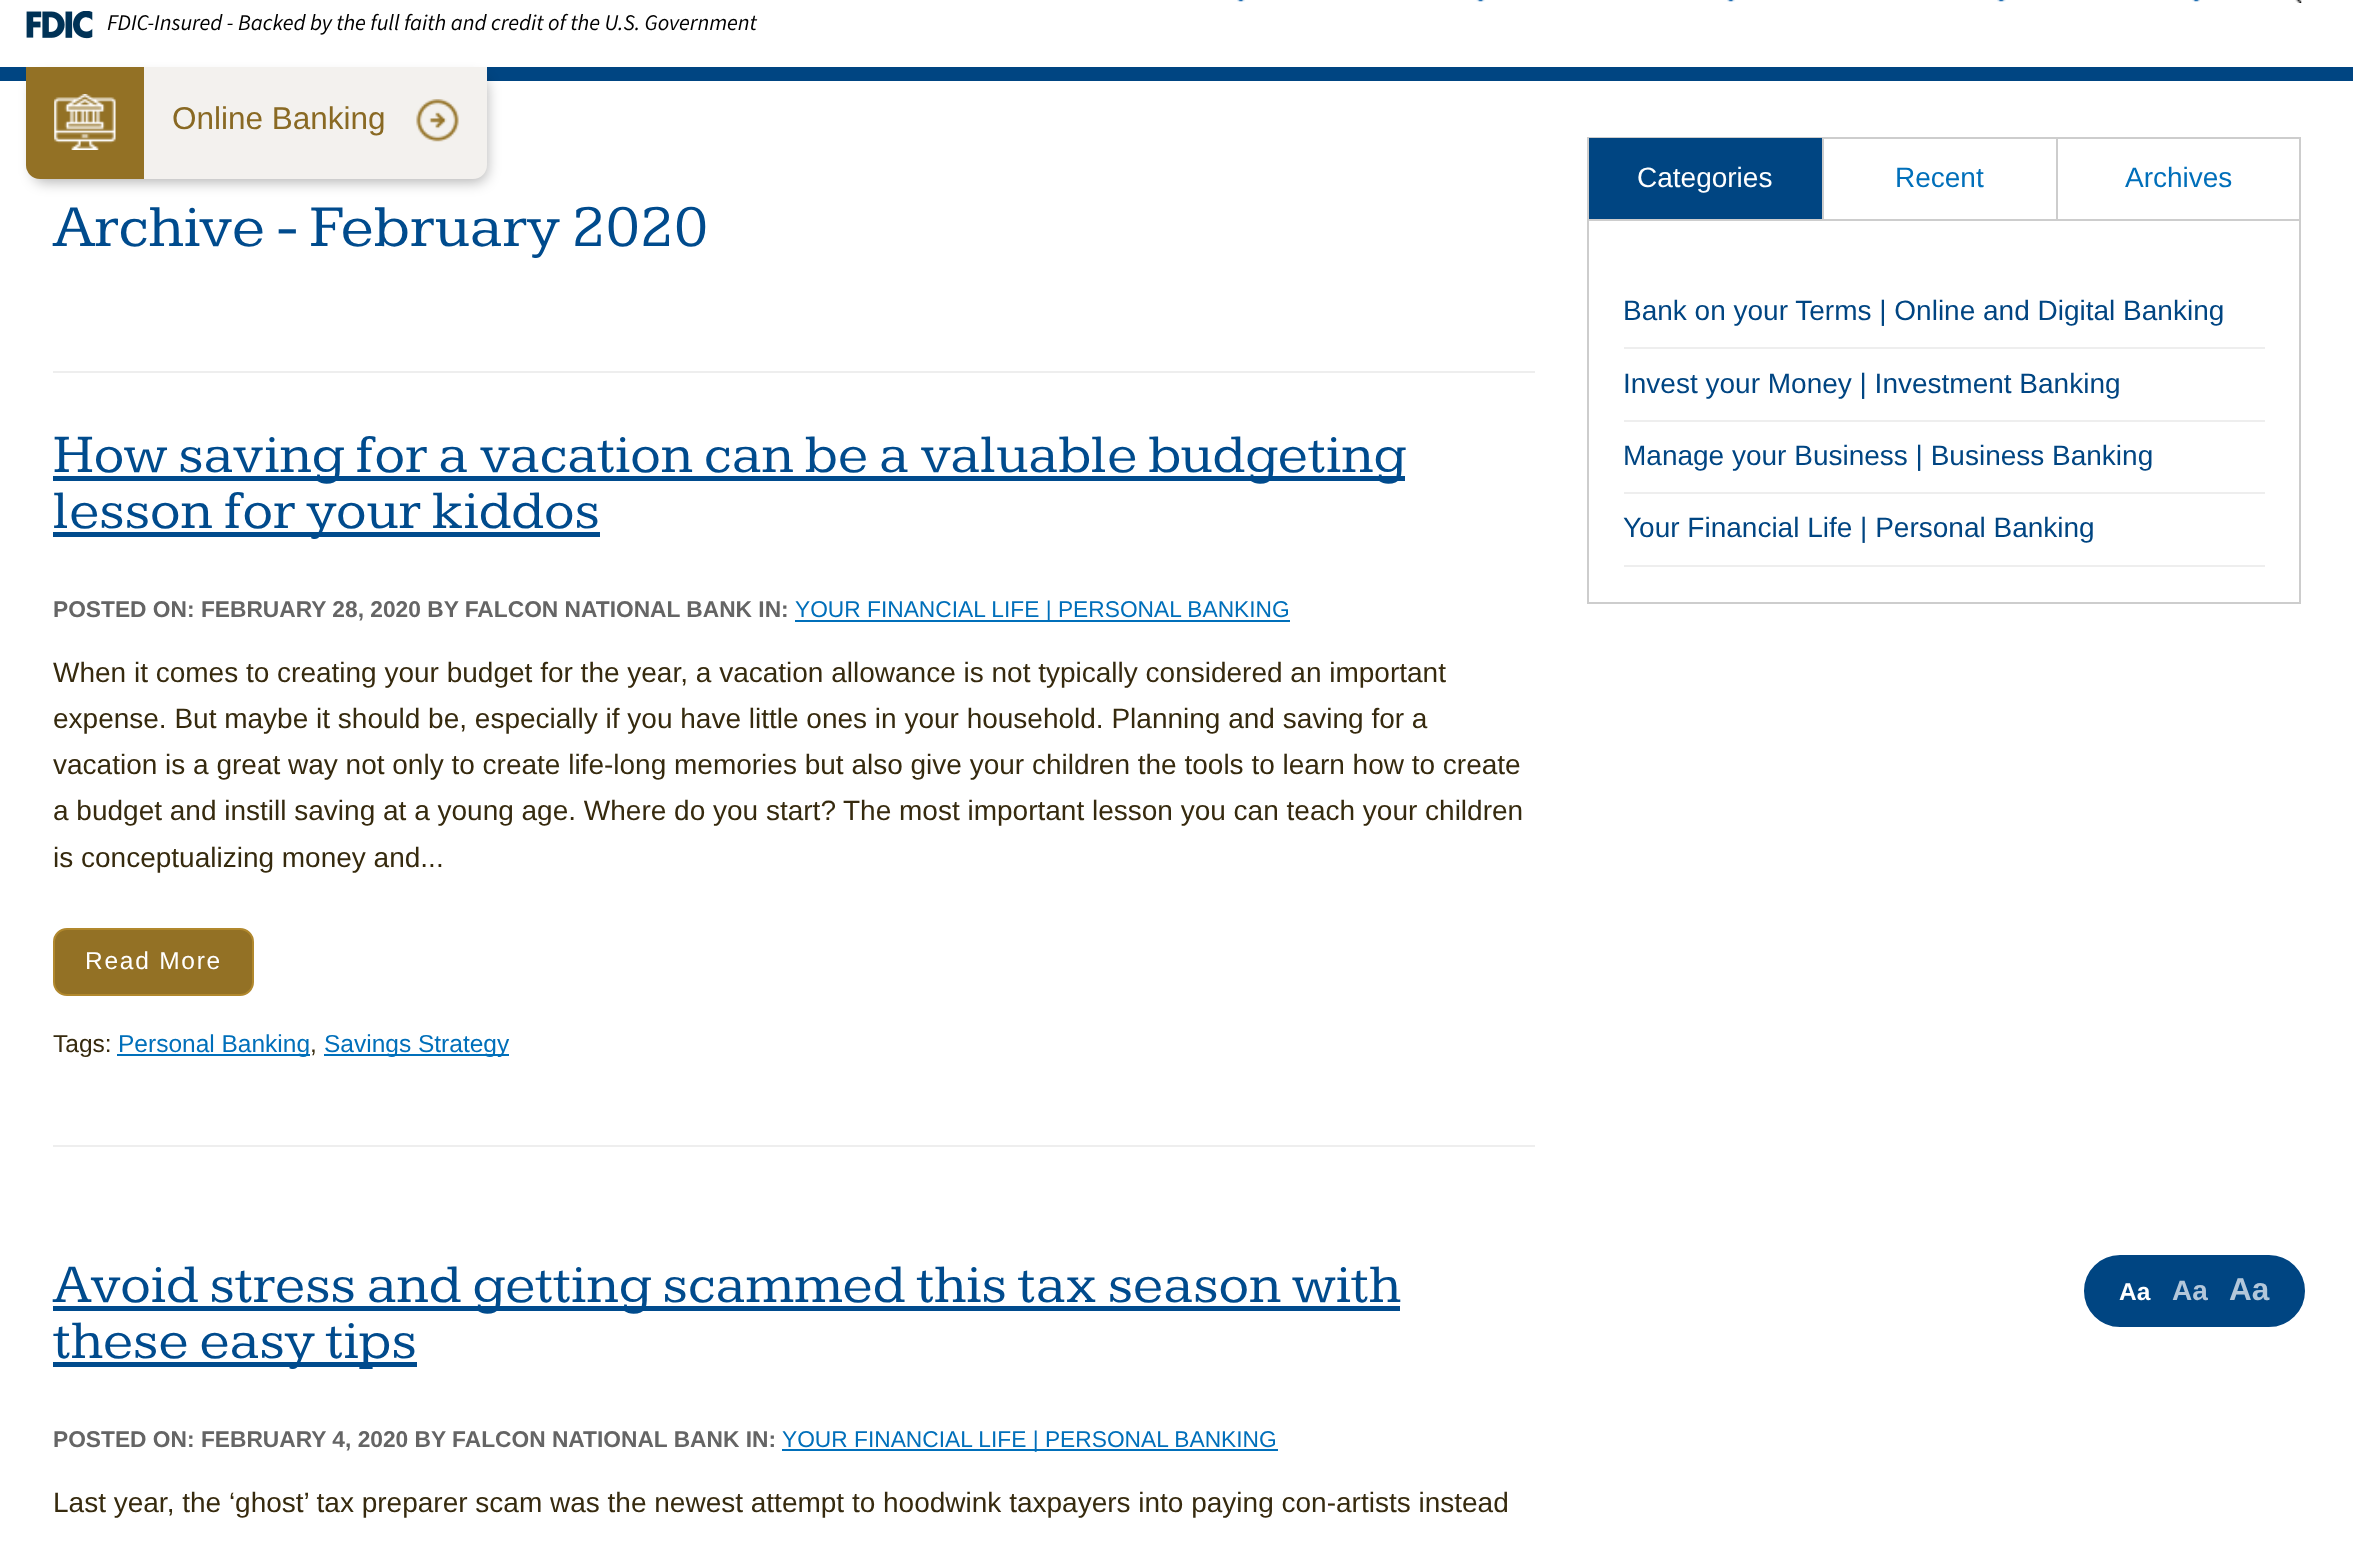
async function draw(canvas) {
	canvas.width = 2353;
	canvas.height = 1543;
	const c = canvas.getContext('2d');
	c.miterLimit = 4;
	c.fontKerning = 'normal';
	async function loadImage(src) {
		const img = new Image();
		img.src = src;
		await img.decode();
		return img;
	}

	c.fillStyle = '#fff';
	c.fillRect(0, 0, 2353, 1543);
	c.drawImage(await loadImage('img1.png'), 1237, 0, 8, 2);
	c.drawImage(await loadImage('img2.png'), 1476, 0, 9, 2);
	c.drawImage(await loadImage('img1.png'), 1727, 0, 8, 2);
	c.drawImage(await loadImage('img3.png'), 1997, 0, 9, 2);
	c.drawImage(await loadImage('img4.png'), 2192, 0, 8, 2);
	c.drawImage(await loadImage('img5.png'), 2295, 0, 7, 3);
	c.drawImage(await loadImage('img6.png'), 26, 11, 67, 28);
	c.font = 'italic 200 22.4px "Source Sans 3"';
	c.fillStyle = '#000';
	c.fillText('FDIC-Insured - Backed by the full faith and credit of the U.S. Government', 107, 30);
	c.fillStyle = '#004582';
	c.fillRect(0, 67, 2353, 14);
	c.fillStyle = '#0000004d';
	c.filter = 'blur(7px)';
	c.beginPath();
	c.roundRect(33, 77, 454, 105, 12);
	c.fill();
	c.filter = 'none';
	c.fillStyle = '#f3f1ee';
	c.beginPath();
	c.roundRect(26, 67, 461, 112, [0, 0, 14, 16]);
	c.fill();
	c.fillStyle = '#937125';
	c.beginPath();
	c.roundRect(26, 67, 118, 112, [0, 0, 0, 14]);
	c.fill();
	c.drawImage(await loadImage('img7.png'), 54, 94, 62, 56);
	c.font = '31.5px Liberation Sans';
	c.fillStyle = '#896923';
	c.fillText('Online Banking', 172, 129);
	c.drawImage(await loadImage('img8.png'), 416, 99, 43, 43);
	c.font = '61.25px Kameron';
	c.fillStyle = '#004b8d';
	c.fillText('Archive - February 2020', 53, 246);
	for (const [x, y, w, h, color] of [
		[53, 371, 1482, 2, '#eee'],
		[53, 1145, 1482, 2, '#eee'],
		[53, 476, 1352, 5, '#004b8d'],
	]) {
		c.fillStyle = color;
		c.fillRect(x, y, w, h);
	}
	c.font = '56px Kameron';
	c.fillText('How saving for a vacation can be a valuable budgeting', 53, 472);
	c.fillRect(53, 532, 547, 5);
	c.fillText('lesson for your kiddos', 53, 528);
	c.font = 'bold 22.75px Liberation Sans';
	c.fillStyle = '#656565';
	c.fillText('POSTED ON: FEBRUARY 28, 2020 BY FALCON NATIONAL BANK IN:', 53, 617);
	c.fillStyle = '#006fba';
	c.fillRect(795, 620, 495, 2);
	c.font = '22.75px Liberation Sans';
	c.fillText('YOUR FINANCIAL LIFE | PERSONAL BANKING', 795, 617);
	c.font = '28px Liberation Sans';
	c.fillStyle = '#362a0e';
	for (const [text, x, y] of [
		['When it comes to creating your budget for the year, a vacation allowance is not typically considered an important', 53, 682],
		['expense. But maybe it should be, especially if you have little ones in your household. Planning and saving for a', 53, 728],
		['vacation is a great way not only to create life-long memories but also give your children the tools to learn how to create', 53, 774],
		['a budget and instill saving at a young age. Where do you start?', 53, 820],
		['The most important lesson you can teach your children', 843, 820],
		['is conceptualizing money and...', 53, 867],
	]) {
		c.fillText(text, x, y);
	}
	c.fillStyle = '#937125';
	c.beginPath();
	c.roundRect(54, 929, 199, 66, 13);
	c.fill();
	c.strokeStyle = '#b1882d';
	c.lineWidth = 2;
	c.stroke();
	c.letterSpacing = '1.75px';
	c.font = '24.5px Liberation Sans';
	c.fillStyle = '#fff';
	c.fillText('Read More', 85, 969);
	c.letterSpacing = '0px';
	c.fillStyle = '#362a0e';
	c.fillText('Tags:', 53, 1052);
	c.fillStyle = '#006fba';
	c.fillRect(117, 1054, 193, 2);
	c.fillText('Personal Banking', 118, 1052);
	c.fillStyle = '#362a0e';
	c.fillText(',', 310, 1052);
	c.fillStyle = '#006fba';
	c.fillRect(324, 1054, 185, 2);
	c.fillText('Savings Strategy', 324, 1052);
	c.fillStyle = '#004b8d';
	c.fillRect(53, 1306, 1347, 5);
	c.font = '56px Kameron';
	c.fillText('Avoid stress and getting scammed this tax season with', 53, 1302);
	c.fillRect(53, 1362, 364, 5);
	c.fillText('these easy tips', 53, 1358);
	c.font = 'bold 22.75px Liberation Sans';
	c.fillStyle = '#656565';
	c.fillText('POSTED ON: FEBRUARY 4, 2020 BY FALCON NATIONAL BANK IN:', 53, 1447);
	c.fillStyle = '#006fba';
	c.fillRect(782, 1449, 496, 2);
	c.font = '22.75px Liberation Sans';
	c.fillText('YOUR FINANCIAL LIFE | PERSONAL BANKING', 782, 1447);
	c.font = '28px Liberation Sans';
	c.fillStyle = '#362a0e';
	c.fillText('Last year, the ‘ghost’ tax preparer scam was the newest attempt to hoodwink taxpayers into paying con-artists instead', 53, 1512);
	c.strokeStyle = '#cdcdcd';
	c.strokeRect(1588, 138, 712, 465);
	for (const [x, y, w, h, color] of [
		[1822, 138, 2, 83, '#cdcdcd'],
		[1589, 138, 233, 81, '#004582'],
		[1589, 219, 233, 2, '#cdcdcd'],
	]) {
		c.fillStyle = color;
		c.fillRect(x, y, w, h);
	}
	c.fillStyle = '#fff';
	c.fillText('Categories', 1637, 187);
	c.fillStyle = '#cdcdcd';
	c.fillRect(2056, 138, 2, 83);
	c.fillRect(1824, 219, 232, 2);
	c.fillStyle = '#006fba';
	c.fillText('Recent', 1895, 187);
	c.fillStyle = '#cdcdcd';
	c.fillRect(2058, 219, 242, 2);
	c.fillStyle = '#006fba';
	c.fillText('Archives', 2125, 187);
	c.fillStyle = '#eee';
	c.fillRect(1624, 347, 641, 2);
	c.fillStyle = '#004582';
	c.fillText('Bank on your Terms | Online and Digital Banking', 1623, 320);
	c.fillStyle = '#eee';
	c.fillRect(1624, 420, 641, 2);
	c.fillStyle = '#004582';
	c.fillText('Invest your Money | Investment Banking', 1623, 393);
	c.fillStyle = '#eee';
	c.fillRect(1624, 492, 641, 2);
	c.fillStyle = '#004582';
	c.fillText('Manage your Business | Business Banking', 1623, 465);
	c.fillStyle = '#eee';
	c.fillRect(1624, 565, 641, 2);
	c.fillStyle = '#004582';
	c.fillText('Your Financial Life | Personal Banking', 1623, 537);
	c.beginPath();
	c.roundRect(2081.5, 1252.5, 226, 77, 38.5);
	c.fill();
	c.strokeStyle = '#fff';
	c.lineWidth = 5;
	c.stroke();
	c.font = 'bold 24.5px Liberation Sans';
	c.fillStyle = '#fff';
	c.fillText('Aa', 2119, 1300);
	c.font = 'bold 28px Liberation Sans';
	c.fillStyle = '#b3c7da';
	c.fillText('Aa', 2172, 1300);
	c.font = 'bold 31.5px Liberation Sans';
	c.fillText('Aa', 2229, 1300);
}

draw(document.querySelector('canvas'));
